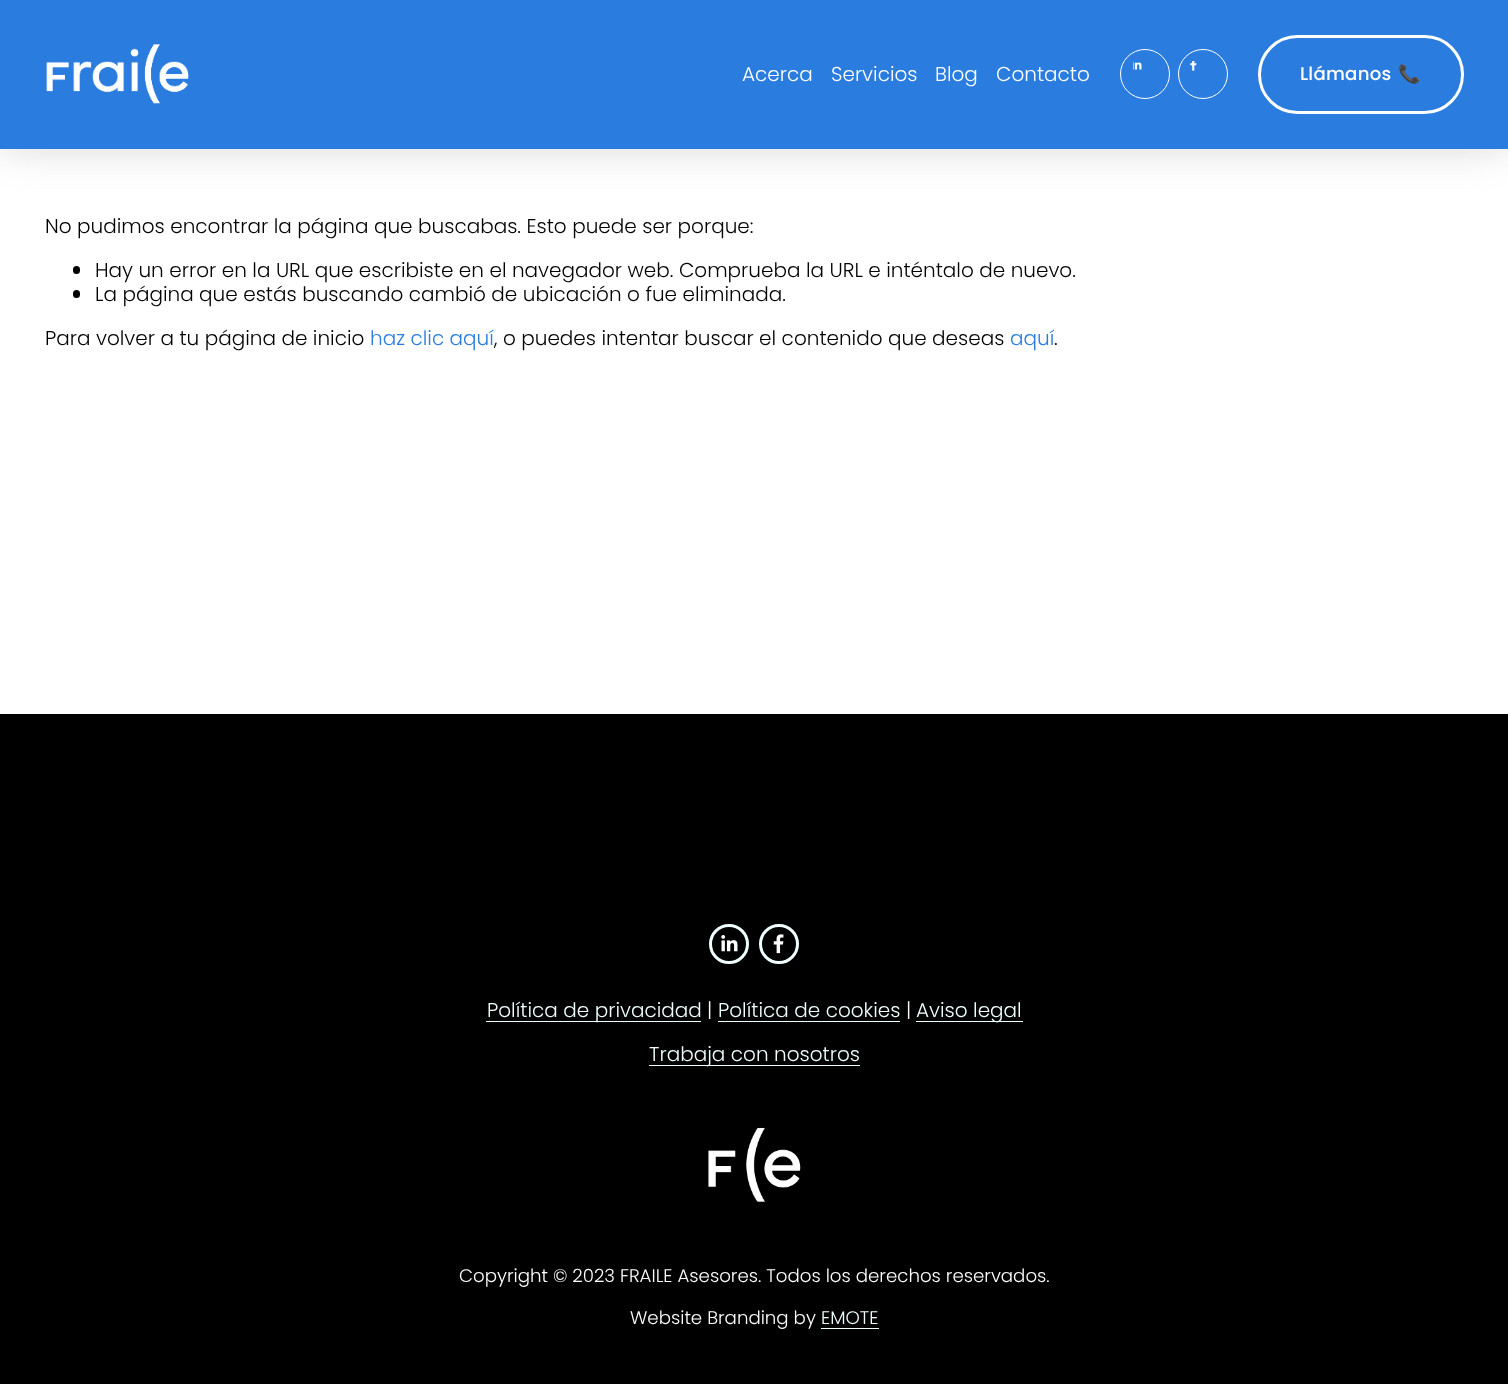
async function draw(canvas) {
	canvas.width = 1508;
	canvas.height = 1384;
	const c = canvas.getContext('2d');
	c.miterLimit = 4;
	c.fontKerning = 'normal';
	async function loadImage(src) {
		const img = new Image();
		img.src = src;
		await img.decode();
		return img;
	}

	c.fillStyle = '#fff';
	c.fillRect(0, 0, 1508, 1384);
	c.fillStyle = '#d9d9d9';
	c.filter = 'blur(19px)';
	c.beginPath();
	c.rect(0, 0, 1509, 149);
	c.fill();
	c.filter = 'none';
	c.fillStyle = '#2a7ddf';
	c.fillRect(0, 0, 1508, 149);
	c.drawImage(await loadImage('img1.png'), 46, 44, 143, 60);
	c.font = '300 20px Poppins';
	c.fillStyle = '#fff';
	for (const [text, x, y] of [
		['Acerca', 742, 81],
		['Servicios', 831, 81],
		['Blog', 935, 81],
		['Contacto', 996, 81],
	]) {
		c.fillText(text, x, y);
	}
	c.beginPath();
	c.arc(1145, 74, 24.5, 0, 2 * Math.PI);
	c.strokeStyle = '#fff';
	c.stroke();
	c.drawImage(await loadImage('img2.png'), 1133, 61, 9, 9);
	c.beginPath();
	c.arc(1203, 74, 24.5, 0, 2 * Math.PI);
	c.stroke();
	c.drawImage(await loadImage('img3.png'), 1190, 61, 7, 10);
	c.beginPath();
	c.roundRect(1259.5, 36.5, 203, 76, 38);
	c.lineWidth = 3;
	c.stroke();
	c.letterSpacing = '0.25px';
	c.font = '500 18.2px Poppins';
	c.fillText('Llámanos', 1300, 80);
	c.font = '18.2px Noto Color Emoji';
	c.fillText('📞', 1398, 80);
	c.letterSpacing = '0px';
	c.font = '300 20px Poppins';
	c.fillStyle = '#000';
	c.fillText('No pudimos encontrar la página que buscabas. Esto puede ser porque:', 45, 233);
	c.beginPath();
	c.roundRect(73, 266, 7, 8, 3.5);
	c.fill();
	c.fillText('Hay un error en la URL que escribiste en el navegador web. Comprueba la URL e inténtalo de nuevo.', 95, 277);
	c.beginPath();
	c.roundRect(73, 290, 7, 8, 3.5);
	c.fill();
	c.fillText('La página que estás buscando cambió de ubicación o fue eliminada.', 95, 301);
	c.fillText('Para volver a tu página de inicio', 45, 345);
	c.fillStyle = '#2a7ddf';
	c.fillText('haz clic aquí', 370, 345);
	c.fillStyle = '#000';
	c.fillText(', o puedes intentar buscar el contenido que deseas', 494, 345);
	c.fillStyle = '#2a7ddf';
	c.fillText('aquí', 1010, 345);
	c.fillStyle = '#000';
	c.fillText('.', 1054, 345);
	c.fillRect(0, 714, 1508, 670);
	c.beginPath();
	c.arc(729, 944, 18.5, 0, 2 * Math.PI);
	c.strokeStyle = '#f0ffff';
	c.stroke();
	c.drawImage(await loadImage('img4.png'), 721, 935, 17, 17);
	c.beginPath();
	c.arc(779, 944, 18.5, 0, 2 * Math.PI);
	c.stroke();
	c.drawImage(await loadImage('img5.png'), 773, 934, 11, 20);
	c.fillStyle = '#f0ffff';
	c.fillRect(486, 1021, 215, 1);
	c.fillText('Política de privacidad', 487, 1017);
	c.fillStyle = '#fff';
	c.fillText('|', 707, 1017);
	c.fillStyle = '#f0ffff';
	c.fillText('Política de cookies', 718, 1017);
	c.fillRect(718, 1021, 182, 1);
	c.fillStyle = '#fff';
	c.fillText('|', 906, 1017);
	c.fillStyle = '#f0ffff';
	c.fillRect(916, 1021, 107, 1);
	c.fillText('Aviso legal', 916, 1017);
	c.fillRect(649, 1065, 211, 1);
	c.fillText('Trabaja con nosotros', 649, 1061);
	c.drawImage(await loadImage('img6.png'), 708, 1127, 93, 75);
	c.font = '300 18.2px Poppins';
	c.fillStyle = '#fff';
	c.fillText('Copyright © 2023 FRAILE Asesores. Todos los derechos reservados.', 459, 1282);
	c.fillText('Website Branding by', 630, 1324);
	c.fillStyle = '#f0ffff';
	c.fillText('EMOTE', 821, 1324);
	c.fillRect(821, 1328, 58, 1);
}

draw(document.querySelector('canvas'));
